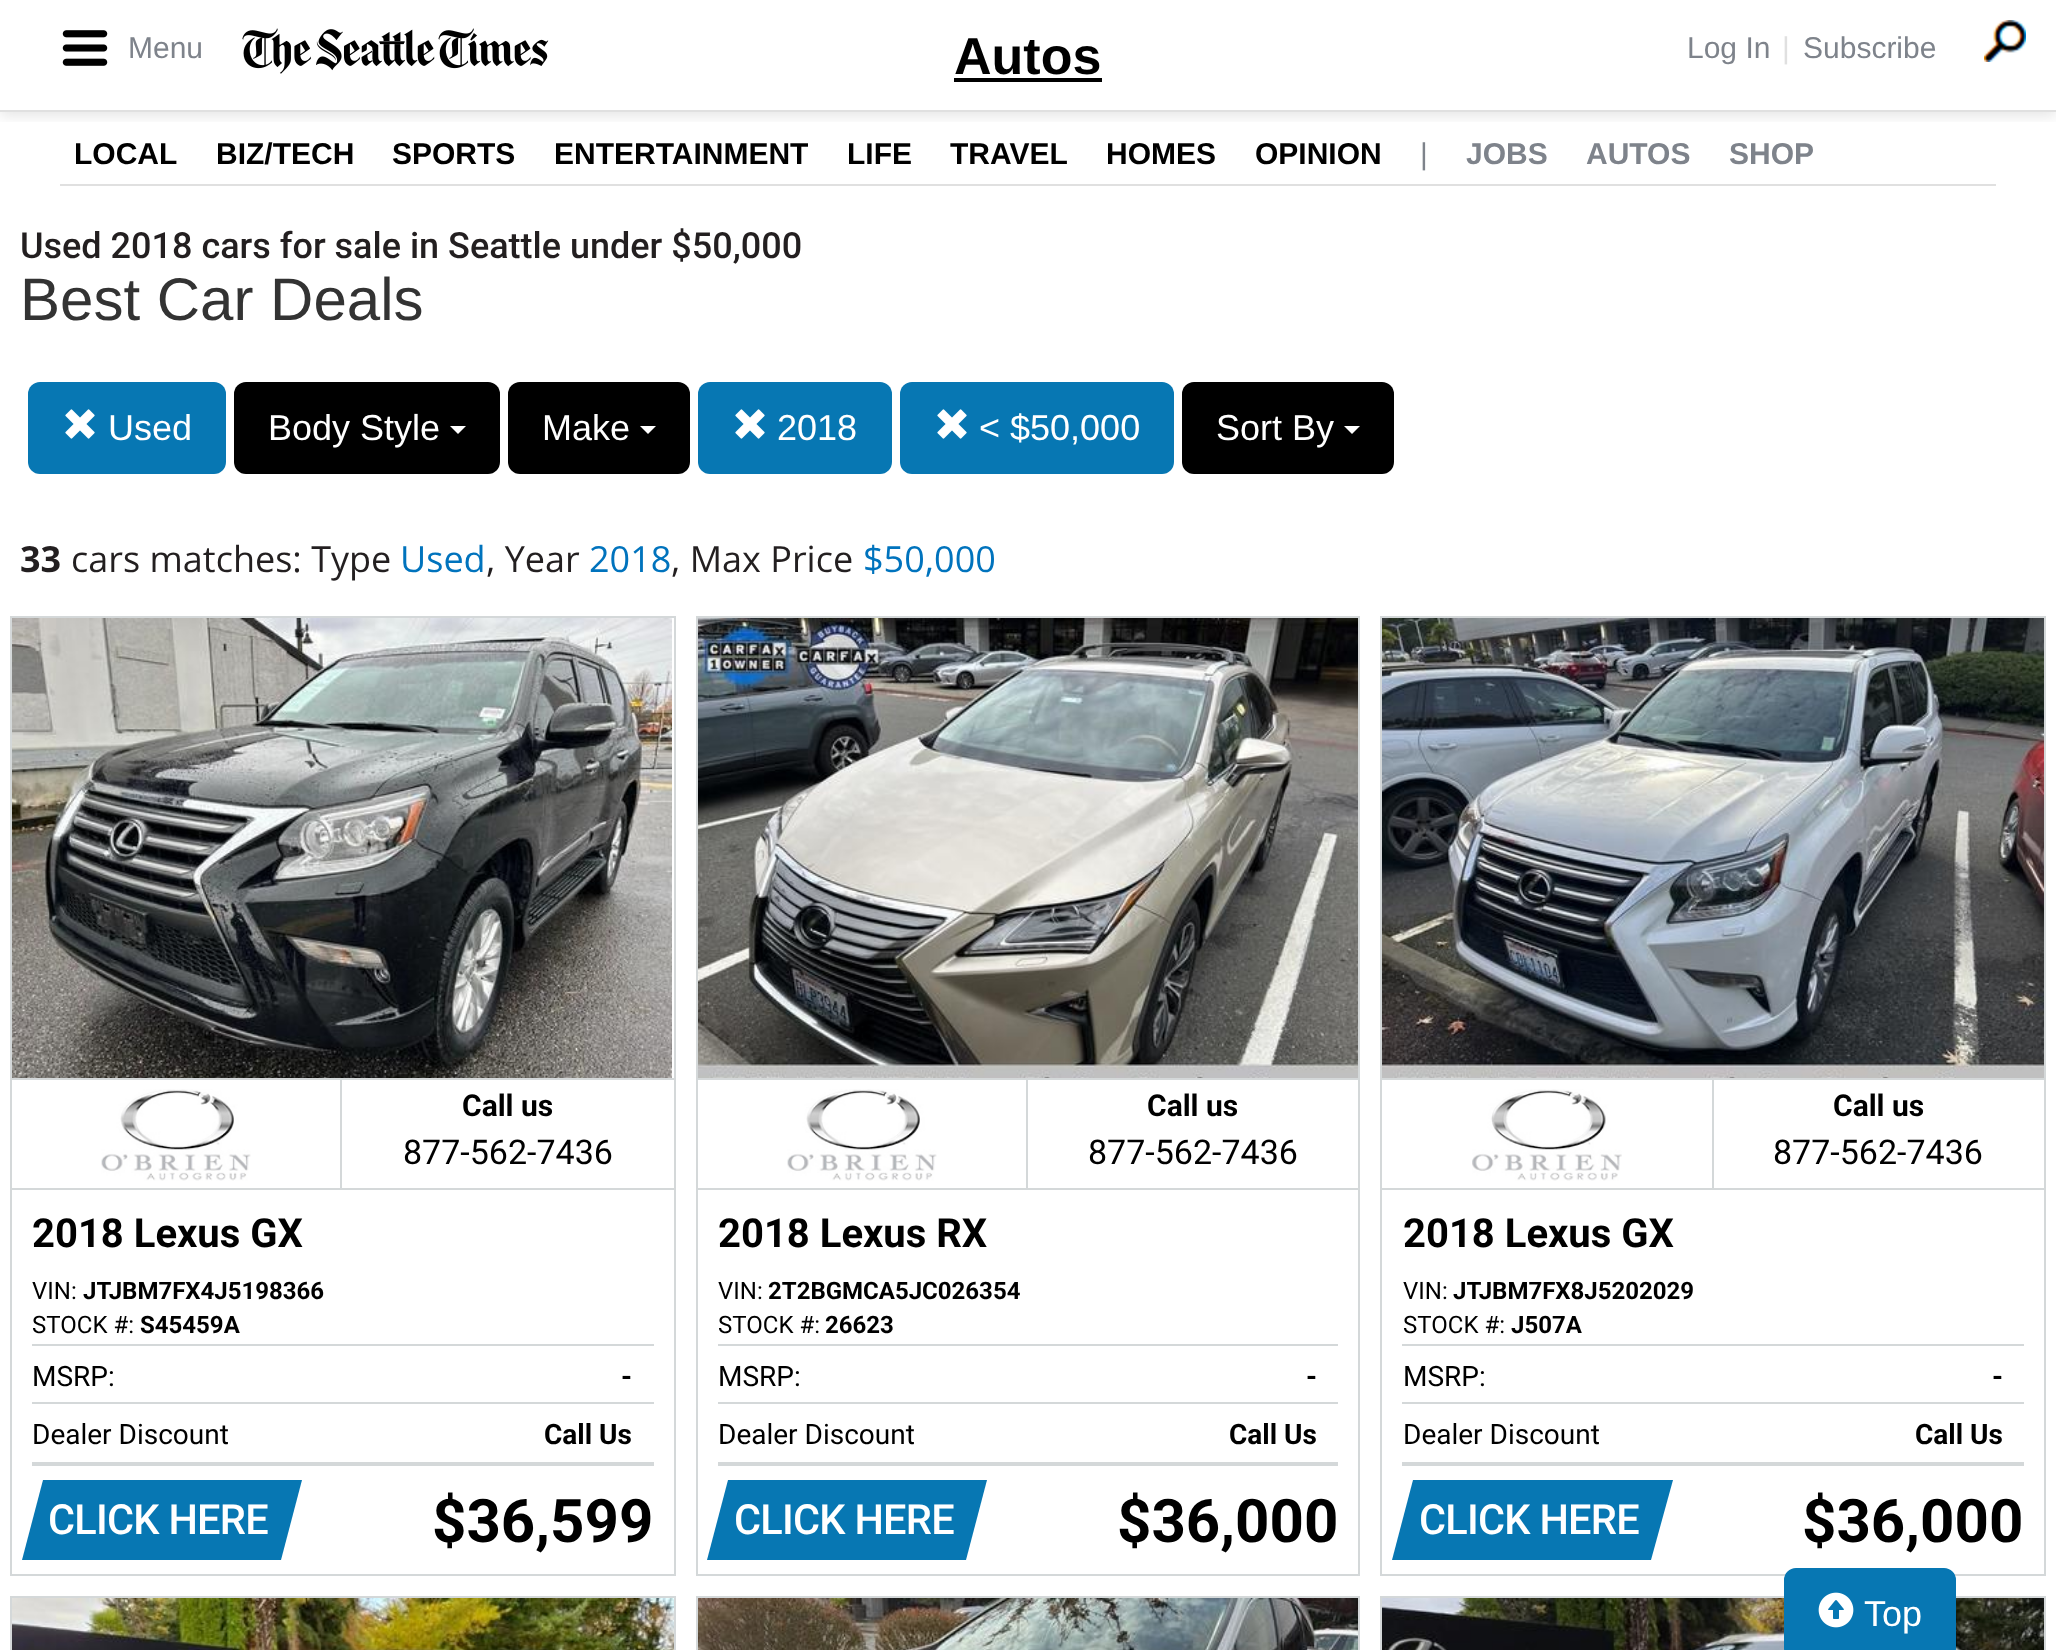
async function draw(canvas) {
	canvas.width = 2056;
	canvas.height = 1650;
	const c = canvas.getContext('2d');
	c.miterLimit = 4;
	c.fontKerning = 'normal';
	async function loadImage(src) {
		const img = new Image();
		img.src = src;
		await img.decode();
		return img;
	}

	c.fillStyle = '#fff';
	c.fillRect(0, 0, 2056, 1650);
	c.save();
	c.beginPath();
	c.rect(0, 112, 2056, 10);
	c.clip();
	c.fillStyle = '#0000001a';
	c.filter = 'blur(7px)';
	c.beginPath();
	c.rect(0, 4, 2056, 112);
	c.fill();
	c.filter = 'none';
	c.restore();
	c.fillStyle = '#e0e0e0';
	c.fillRect(0, 110, 2056, 2);
	c.drawImage(await loadImage('img1.png'), 62, 30, 46, 36);
	c.font = '30px Liberation Sans';
	c.fillStyle = '#7e838b';
	c.fillText('Menu', 128, 58);
	c.drawImage(await loadImage('img2.png'), 242, 28, 307, 46);
	c.fillText('Log In', 1687, 58);
	c.fillStyle = '#e0e0e0';
	c.fillText('|', 1782, 58);
	c.fillStyle = '#7e838b';
	c.fillText('Subscribe', 1803, 58);
	c.drawImage(await loadImage('img3.png'), 1984, 20, 42, 42);
	c.font = 'bold 52px Liberation Sans';
	c.fillStyle = '#000';
	c.fillText('Autos', 954, 74);
	c.fillRect(954, 78, 148, 4);
	c.fillStyle = '#e0e0e0';
	c.fillRect(60, 184, 1936, 2);
	c.font = 'bold 30px Liberation Sans';
	c.fillStyle = '#000';
	for (const [text, x, y] of [
		['LOCAL', 74, 164],
		['BIZ/TECH', 216, 164],
		['SPORTS', 392, 164],
		['ENTERTAINMENT', 554, 164],
		['LIFE', 847, 164],
		['TRAVEL', 950, 164],
		['HOMES', 1106, 164],
		['OPINION', 1255, 164],
	]) {
		c.fillText(text, x, y);
	}
	c.font = '30px Liberation Sans';
	c.fillStyle = '#7e838b';
	c.fillText('|', 1420, 164);
	c.font = 'bold 30px Liberation Sans';
	for (const [text, x, y] of [
		['JOBS', 1466, 164],
		['AUTOS', 1586, 164],
		['SHOP', 1729, 164],
	]) {
		c.fillText(text, x, y);
	}
	c.font = '500 36px Roboto';
	c.fillStyle = '#231f20';
	c.fillText('Used 2018 cars for sale in Seattle under $50,000', 20, 258);
	c.font = '60px Liberation Sans';
	c.fillStyle = '#333';
	c.fillText('Best Car Deals', 20, 320);
	c.fillStyle = '#0777b3';
	c.beginPath();
	c.roundRect(28, 382, 198, 92, 12);
	c.fill();
	c.drawImage(await loadImage('img4.png'), 65, 409, 30, 30);
	c.font = '36px Liberation Sans';
	c.fillStyle = '#fff';
	c.fillText('Used', 108, 440);
	c.fillStyle = '#000';
	c.beginPath();
	c.roundRect(234, 382, 266, 92, 12);
	c.fill();
	c.fillStyle = '#fff';
	c.fillText('Body Style', 268, 440);
	c.beginPath();
	c.moveTo(450, 426);
	c.lineTo(466, 426);
	c.lineTo(458, 434);
	c.closePath();
	c.fill();
	c.fillStyle = '#000';
	c.beginPath();
	c.roundRect(508, 382, 182, 92, 12);
	c.fill();
	c.fillStyle = '#fff';
	c.fillText('Make', 542, 440);
	c.beginPath();
	c.moveTo(640, 426);
	c.lineTo(656, 426);
	c.lineTo(648, 434);
	c.closePath();
	c.fill();
	c.fillStyle = '#0777b3';
	c.beginPath();
	c.roundRect(698, 382, 194, 92, 12);
	c.fill();
	c.drawImage(await loadImage('img4.png'), 735, 409, 30, 30);
	c.fillStyle = '#fff';
	c.fillText('2018', 777, 440);
	c.fillStyle = '#0777b3';
	c.beginPath();
	c.roundRect(900, 382, 274, 92, 12);
	c.fill();
	c.drawImage(await loadImage('img4.png'), 937, 409, 30, 30);
	c.fillStyle = '#fff';
	c.fillText('< $50,000', 979, 440);
	c.fillStyle = '#000';
	c.beginPath();
	c.roundRect(1182, 382, 212, 92, 12);
	c.fill();
	c.fillStyle = '#fff';
	c.fillText('Sort By', 1216, 440);
	c.beginPath();
	c.moveTo(1344, 426);
	c.lineTo(1360, 426);
	c.lineTo(1352, 434);
	c.closePath();
	c.fill();
	c.font = 'bold 36px Open Sans';
	c.fillStyle = '#231f20';
	c.fillText('33', 20, 572);
	c.font = '36px Open Sans';
	c.fillText('cars matches: Type', 71, 572);
	c.fillStyle = '#0073bd';
	c.fillText('Used', 400, 572);
	c.fillStyle = '#231f20';
	c.fillText(', Year', 486, 572);
	c.fillStyle = '#0073bd';
	c.fillText('2018', 589, 572);
	c.fillStyle = '#231f20';
	c.fillText(', Max Price', 671, 572);
	c.fillStyle = '#0073bd';
	c.fillText('$50,000', 863, 572);
	c.strokeStyle = '#d4d8d9';
	c.lineWidth = 2;
	c.strokeRect(11, 617, 664, 958);
	c.drawImage(await loadImage('img5.png'), 12, 618, 660, 460);
	for (const [x, y, w, h, color] of [
		[12, 1078, 662, 2, '#d4d8d9'],
		[340, 1078, 2, 112, '#d4d8d9'],
		[12, 1188, 662, 2, '#d4d8d9'],
	]) {
		c.fillStyle = color;
		c.fillRect(x, y, w, h);
	}
	c.drawImage(await loadImage('img6.png'), 101, 1089, 150, 92);
	c.font = 'bold 30px Roboto';
	c.fillStyle = '#000';
	c.fillText('Call us', 462, 1116);
	c.font = '34px Roboto';
	c.fillText('877-562-7436', 403, 1164);
	c.font = 'bold 40px Roboto';
	c.fillText('2018 Lexus GX', 32, 1247);
	c.font = '24px Roboto';
	c.fillText('VIN:', 32, 1299);
	c.font = 'bold 24px Roboto';
	c.fillText('JTJBM7FX4J5198366', 83, 1299);
	c.font = '24px Roboto';
	c.fillText('STOCK #:', 32, 1333);
	c.font = 'bold 24px Roboto';
	c.fillText('S45459A', 140, 1333);
	c.fillStyle = '#d4d8d9';
	c.fillRect(32, 1344, 622, 2);
	c.fillRect(32, 1402, 622, 2);
	c.font = '28px Roboto';
	c.fillStyle = '#000';
	c.fillText('MSRP:', 32, 1386);
	c.font = 'bold 28px Roboto';
	c.fillText('-', 621, 1386);
	c.fillStyle = '#d4d8d9';
	c.fillRect(32, 1462, 622, 4);
	c.font = '28px Roboto';
	c.fillStyle = '#000';
	c.fillText('Dealer Discount', 32, 1444);
	c.font = 'bold 28px Roboto';
	c.fillText('Call Us', 544, 1444);
	c.fillStyle = '#0777b3';
	c.beginPath();
	c.moveTo(43, 1480);
	c.lineTo(302, 1480);
	c.lineTo(281, 1560);
	c.lineTo(22, 1560);
	c.closePath();
	c.fill();
	c.letterSpacing = '-0.75px';
	c.font = '500 41.5px Roboto';
	c.fillStyle = '#fff';
	c.fillText('CLICK HERE', 48, 1534);
	c.letterSpacing = '0px';
	c.font = 'bold 60px Roboto';
	c.fillStyle = '#000';
	c.fillText('$36,599', 432, 1542);
	c.strokeRect(697, 617, 662, 958);
	c.drawImage(await loadImage('img7.png'), 698, 618, 660, 460);
	for (const [x, y, w, h, color] of [
		[698, 1078, 660, 2, '#d4d8d9'],
		[1026, 1078, 2, 112, '#d4d8d9'],
		[698, 1188, 660, 2, '#d4d8d9'],
	]) {
		c.fillStyle = color;
		c.fillRect(x, y, w, h);
	}
	c.drawImage(await loadImage('img6.png'), 787, 1089, 150, 92);
	c.font = 'bold 30px Roboto';
	c.fillStyle = '#000';
	c.fillText('Call us', 1147, 1116);
	c.font = '34px Roboto';
	c.fillText('877-562-7436', 1088, 1164);
	c.font = 'bold 40px Roboto';
	c.fillText('2018 Lexus RX', 718, 1247);
	c.font = '24px Roboto';
	c.fillText('VIN:', 718, 1299);
	c.font = 'bold 24px Roboto';
	c.fillText('2T2BGMCA5JC026354', 768, 1299);
	c.font = '24px Roboto';
	c.fillText('STOCK #:', 718, 1333);
	c.font = 'bold 24px Roboto';
	c.fillText('26623', 825, 1333);
	c.fillStyle = '#d4d8d9';
	c.fillRect(718, 1344, 620, 2);
	c.fillRect(718, 1402, 620, 2);
	c.font = '28px Roboto';
	c.fillStyle = '#000';
	c.fillText('MSRP:', 718, 1386);
	c.font = 'bold 28px Roboto';
	c.fillText('-', 1306, 1386);
	c.fillStyle = '#d4d8d9';
	c.fillRect(718, 1462, 620, 4);
	c.font = '28px Roboto';
	c.fillStyle = '#000';
	c.fillText('Dealer Discount', 718, 1444);
	c.font = 'bold 28px Roboto';
	c.fillText('Call Us', 1229, 1444);
	c.fillStyle = '#0777b3';
	c.beginPath();
	c.moveTo(728, 1480);
	c.lineTo(987, 1480);
	c.lineTo(966, 1560);
	c.lineTo(707, 1560);
	c.closePath();
	c.fill();
	c.letterSpacing = '-0.75px';
	c.font = '500 41.5px Roboto';
	c.fillStyle = '#fff';
	c.fillText('CLICK HERE', 734, 1534);
	c.letterSpacing = '0px';
	c.font = 'bold 60px Roboto';
	c.fillStyle = '#000';
	c.fillText('$36,000', 1117, 1542);
	c.strokeRect(1381, 617, 664, 958);
	c.drawImage(await loadImage('img8.png'), 1382, 618, 662, 460);
	for (const [x, y, w, h, color] of [
		[1382, 1078, 662, 2, '#d4d8d9'],
		[1712, 1078, 2, 112, '#d4d8d9'],
		[1382, 1188, 662, 2, '#d4d8d9'],
	]) {
		c.fillStyle = color;
		c.fillRect(x, y, w, h);
	}
	c.drawImage(await loadImage('img9.png'), 1472, 1089, 150, 92);
	c.font = 'bold 30px Roboto';
	c.fillStyle = '#000';
	c.fillText('Call us', 1833, 1116);
	c.font = '34px Roboto';
	c.fillText('877-562-7436', 1773, 1164);
	c.font = 'bold 40px Roboto';
	c.fillText('2018 Lexus GX', 1403, 1247);
	c.font = '24px Roboto';
	c.fillText('VIN:', 1403, 1299);
	c.font = 'bold 24px Roboto';
	c.fillText('JTJBM7FX8J5202029', 1453, 1299);
	c.font = '24px Roboto';
	c.fillText('STOCK #:', 1403, 1333);
	c.font = 'bold 24px Roboto';
	c.fillText('J507A', 1511, 1333);
	c.fillStyle = '#d4d8d9';
	c.fillRect(1402, 1344, 622, 2);
	c.fillRect(1402, 1402, 622, 2);
	c.font = '28px Roboto';
	c.fillStyle = '#000';
	c.fillText('MSRP:', 1403, 1386);
	c.font = 'bold 28px Roboto';
	c.fillText('-', 1992, 1386);
	c.fillStyle = '#d4d8d9';
	c.fillRect(1402, 1462, 622, 4);
	c.font = '28px Roboto';
	c.fillStyle = '#000';
	c.fillText('Dealer Discount', 1403, 1444);
	c.font = 'bold 28px Roboto';
	c.fillText('Call Us', 1915, 1444);
	c.fillStyle = '#0777b3';
	c.beginPath();
	c.moveTo(1413, 1480);
	c.lineTo(1673, 1480);
	c.lineTo(1651, 1560);
	c.lineTo(1392, 1560);
	c.closePath();
	c.fill();
	c.letterSpacing = '-0.75px';
	c.font = '500 41.5px Roboto';
	c.fillStyle = '#fff';
	c.fillText('CLICK HERE', 1419, 1534);
	c.letterSpacing = '0px';
	c.font = 'bold 60px Roboto';
	c.fillStyle = '#000';
	c.fillText('$36,000', 1802, 1542);
	c.strokeRect(11, 1597, 664, 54);
	c.drawImage(await loadImage('img10.png'), 12, 1598, 662, 52);
	c.strokeRect(697, 1597, 662, 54);
	c.drawImage(await loadImage('img11.png'), 698, 1598, 660, 52);
	c.strokeRect(1381, 1597, 664, 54);
	c.drawImage(await loadImage('img12.png'), 1382, 1598, 662, 52);
	c.fillStyle = '#0777b3';
	c.beginPath();
	c.roundRect(1785, 1569, 170, 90, 11);
	c.fill();
	c.strokeStyle = '#0777b3';
	c.stroke();
	c.drawImage(await loadImage('img13.png'), 1818, 1592, 36, 36);
	c.font = '36px Liberation Sans';
	c.fillStyle = '#fff';
	c.fillText('Top', 1864, 1626);
}

draw(document.querySelector('canvas'));
